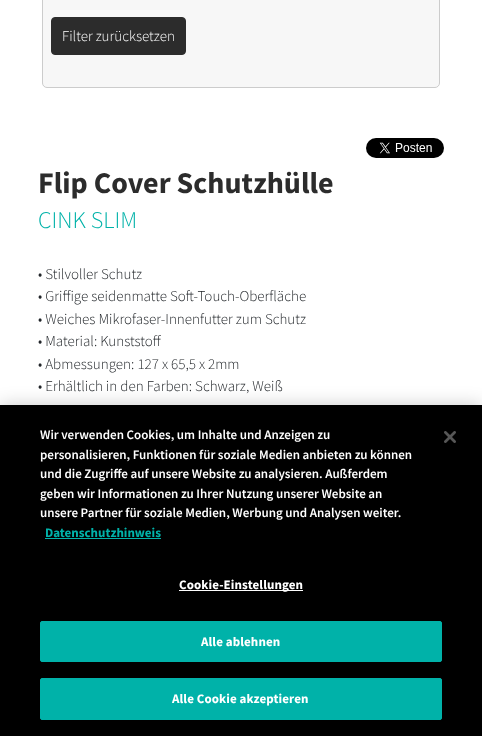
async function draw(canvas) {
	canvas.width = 482;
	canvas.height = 736;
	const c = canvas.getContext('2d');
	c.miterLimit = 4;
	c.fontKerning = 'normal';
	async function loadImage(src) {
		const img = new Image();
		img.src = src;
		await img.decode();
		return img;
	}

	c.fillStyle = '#fff';
	c.fillRect(0, 0, 482, 736);
	c.fillStyle = '#f7f7f7';
	c.beginPath();
	c.roundRect(42.5, -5.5, 397, 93, 4.5);
	c.fill();
	c.strokeStyle = '#ccc';
	c.stroke();
	c.fillStyle = '#2c2c2c';
	c.beginPath();
	c.roundRect(51.5, 17.5, 134, 37, 3.5);
	c.fill();
	c.strokeStyle = '#2c2c2c';
	c.stroke();
	c.font = '300 15px Source Sans Pro';
	c.fillStyle = '#fff';
	c.fillText('Filter zurücksetzen', 62, 41);
	c.drawImage(await loadImage('img1.png'), 366, 138, 78, 20);
	c.font = 'bold 30px Source Sans Pro';
	c.fillStyle = '#2c2c2c';
	c.fillText('Flip Cover Schutzhülle', 38, 193);
	c.font = '300 24px Source Sans Pro';
	c.fillStyle = '#00b2a9';
	c.fillText('CINK SLIM', 38, 228);
	c.font = '300 15px Source Sans Pro';
	c.fillStyle = '#212529';
	for (const [text, x, y] of [
		['• Stilvoller Schutz', 38, 279],
		['• Griffige seidenmatte Soft-Touch-Oberfläche', 38, 301],
		['• Weiches Mikrofaser-Innenfutter zum Schutz', 38, 324],
		['• Material: Kunststoff', 38, 346],
		['• Abmessungen: 127 x 65,5 x 2mm', 38, 369],
		['• Erhältlich in den Farben: Schwarz, Weiß', 38, 391],
	]) {
		c.fillText(text, x, y);
	}
	c.fillStyle = '#00000033';
	c.filter = 'blur(9px)';
	c.beginPath();
	c.rect(0, 405, 482, 331);
	c.fill();
	c.filter = 'none';
	c.fillStyle = '#000';
	c.fillRect(0, 405, 482, 331);
	c.font = '600 13px Source Sans Pro';
	c.fillStyle = '#fff';
	for (const [text, x, y] of [
		['Wir verwenden Cookies, um Inhalte und Anzeigen zu', 40, 439],
		['personalisieren, Funktionen für soziale Medien anbieten zu können', 40, 459],
		['und die Zugriffe auf unsere Website zu analysieren. Außferdem', 40, 478],
		['geben wir Informationen zu Ihrer Nutzung unserer Website an', 40, 498],
		['unsere Partner für soziale Medien, Werbung und Analysen weiter.', 40, 517],
	]) {
		c.fillText(text, x, y);
	}
	c.font = 'bold 13px Source Sans Pro';
	c.fillStyle = '#00b2a9';
	c.fillText('Datenschutzhinweis', 45, 537);
	c.fillRect(45, 538, 116, 1);
	c.fillStyle = '#fff';
	c.fillRect(179, 590, 124, 1);
	c.letterSpacing = '0.1px';
	c.fillText('Cookie-Einstellungen', 179, 589);
	c.fillStyle = '#00b2a9';
	c.beginPath();
	c.roundRect(40.5, 621.5, 401, 40, 1.5);
	c.fill();
	c.strokeStyle = '#00b2a9';
	c.stroke();
	c.fillStyle = '#fff';
	c.fillText('Alle ablehnen', 201, 646);
	c.fillStyle = '#00b2a9';
	c.beginPath();
	c.roundRect(40.5, 678.5, 401, 41, 1.5);
	c.fill();
	c.stroke();
	c.fillStyle = '#fff';
	c.fillText('Alle Cookie akzeptieren', 172, 703);
	c.drawImage(await loadImage('img2.png'), 444, 431, 12, 12);
}

draw(document.querySelector('canvas'));
